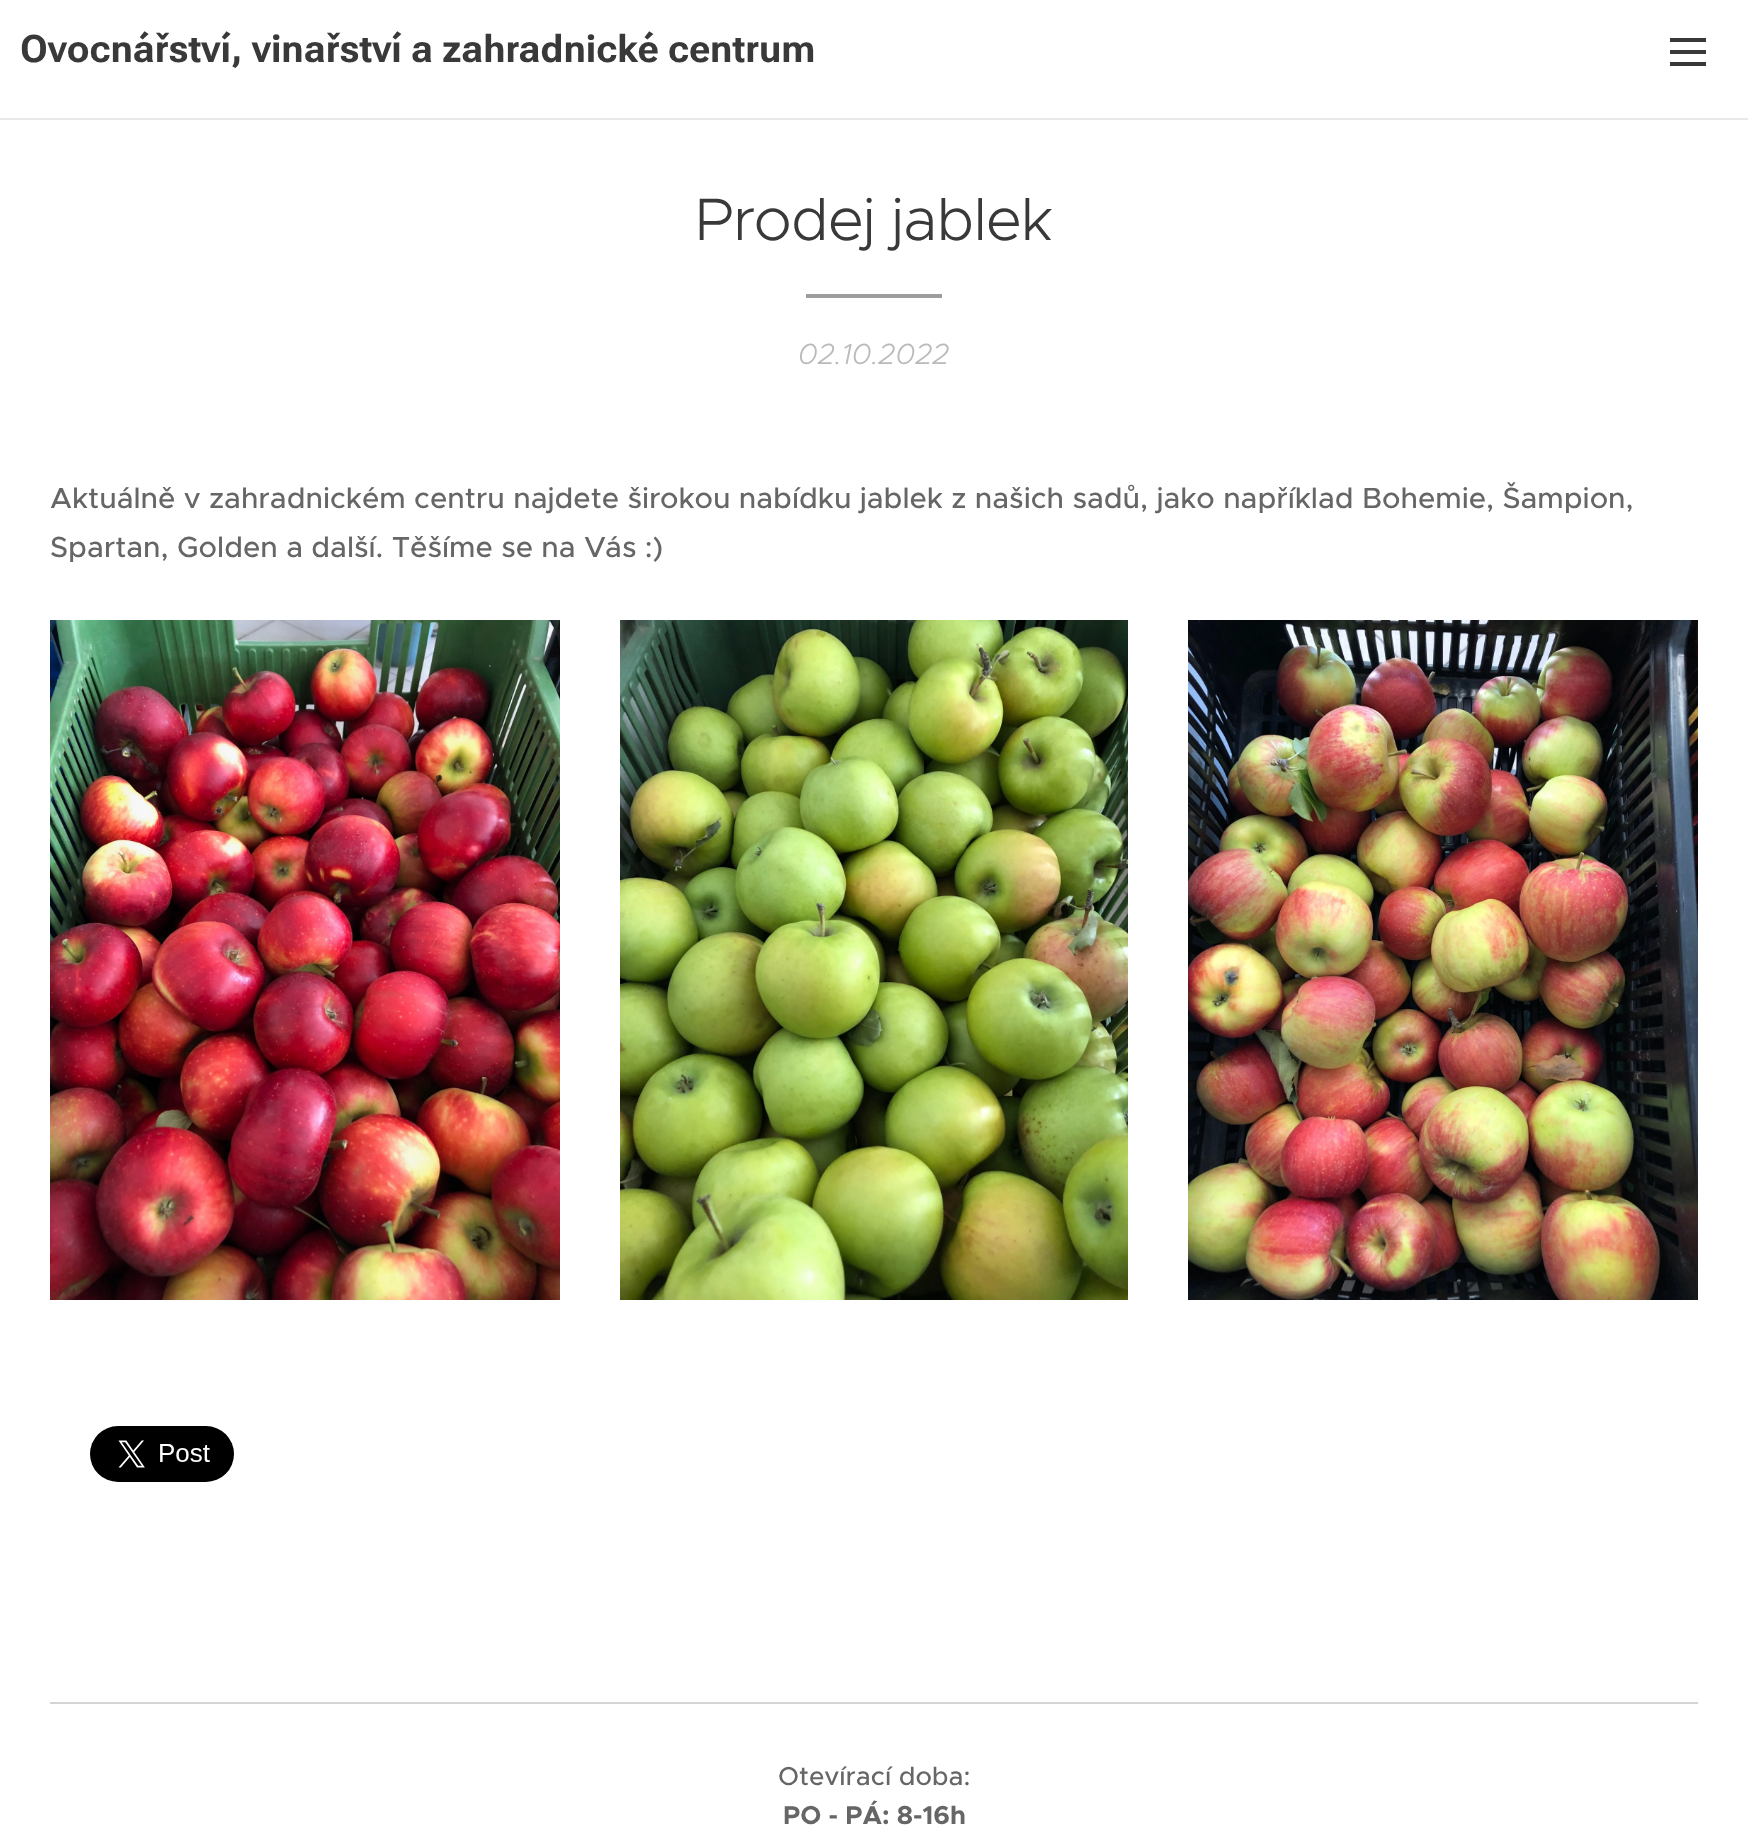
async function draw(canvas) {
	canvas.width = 1748;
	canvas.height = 1827;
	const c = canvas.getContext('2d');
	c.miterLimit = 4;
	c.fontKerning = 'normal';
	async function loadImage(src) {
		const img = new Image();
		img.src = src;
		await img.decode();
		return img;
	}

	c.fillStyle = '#fff';
	c.fillRect(0, 0, 1748, 1827);
	c.fillStyle = '#e8e8e8';
	c.fillRect(0, 118, 1748, 2);
	c.font = 'bold 37.8px Roboto Flex';
	c.fillStyle = '#393939';
	c.fillText('Ovocnářství, vinařství a zahradnické centrum', 20, 62);
	for (const [x, y, w, h, color] of [
		[1670, 50, 36, 4, '#393939'],
		[1670, 38, 36, 4, '#393939'],
		[1670, 62, 36, 4, '#393939'],
	]) {
		c.fillStyle = color;
		c.fillRect(x, y, w, h);
	}
	c.letterSpacing = '-0.6px';
	c.font = '300 60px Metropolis';
	c.fillText('Prodej jablek', 695, 240);
	c.fillStyle = '#9d9d9d';
	c.fillRect(806, 294, 136, 4);
	c.letterSpacing = '0px';
	c.font = 'italic 300 29.2px Metropolis';
	c.fillStyle = '#bababa';
	c.fillText('02.10.2022', 798, 364);
	c.font = '500 29.2px Metropolis';
	c.fillStyle = '#666';
	c.fillText('Aktuálně v zahradnickém centru najdete širokou nabídku jablek z našich sadů, jako například Bohemie, Šampion,', 50, 508);
	c.fillText('Spartan, Golden a další. Těšíme se na Vás :)', 50, 557);
	c.drawImage(await loadImage('img1.png'), 50, 620, 510, 680);
	c.drawImage(await loadImage('img2.png'), 620, 620, 508, 680);
	c.drawImage(await loadImage('img3.png'), 1188, 620, 510, 680);
	c.drawImage(await loadImage('img4.png'), 90, 1426, 144, 56);
	c.fillStyle = '#d4d4d4';
	c.fillRect(50, 1702, 1648, 2);
	c.font = '500 26px Metropolis';
	c.fillStyle = '#666';
	c.fillText('Otevírací doba:', 778, 1785);
	c.font = 'bold 26px Metropolis';
	c.fillText('PO - PÁ: 8-16h', 783, 1824);
}

draw(document.querySelector('canvas'));
